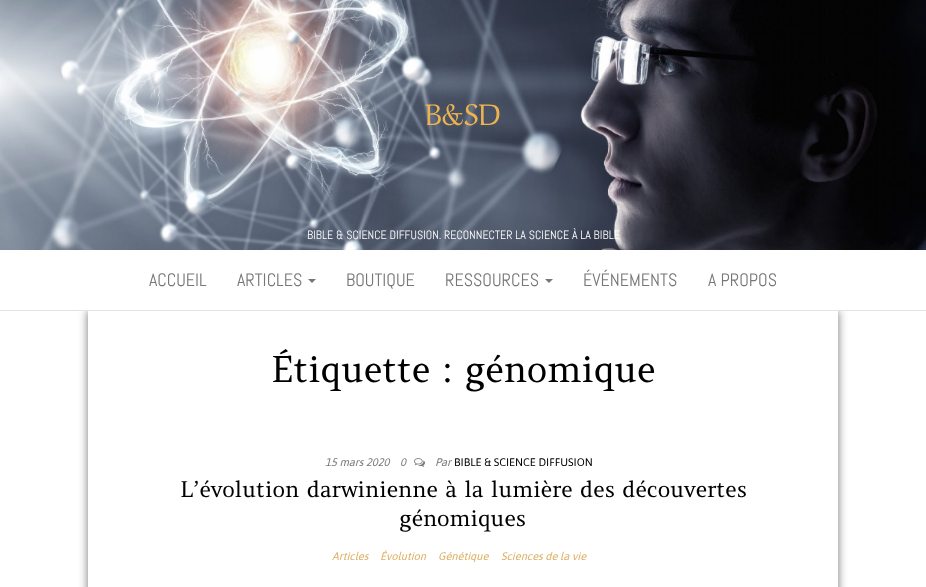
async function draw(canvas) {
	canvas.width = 926;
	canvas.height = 587;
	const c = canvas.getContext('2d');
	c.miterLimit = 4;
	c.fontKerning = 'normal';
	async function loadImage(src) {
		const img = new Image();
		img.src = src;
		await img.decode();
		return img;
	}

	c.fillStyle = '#fff';
	c.fillRect(0, 0, 926, 587);
	c.drawImage(await loadImage('img1.png'), 0, 0, 926, 250);
	c.font = '30px Aref Ruqaa';
	c.fillStyle = '#edb350';
	c.fillText('B&SD', 425, 125);
	c.font = '12px Abel';
	c.fillStyle = '#fff';
	c.fillText('BIBLE & SCIENCE DIFFUSION. RECONNECTER LA SCIENCE À LA BIBLE', 307, 239);
	c.save();
	c.beginPath();
	c.moveTo(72, 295);
	c.lineTo(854, 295);
	c.lineTo(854, 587);
	c.lineTo(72, 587);
	c.closePath();
	c.moveTo(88, 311);
	c.lineTo(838, 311);
	c.lineTo(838, 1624);
	c.lineTo(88, 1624);
	c.closePath();
	c.clip('evenodd');
	c.fillStyle = '#0000008c';
	c.filter = 'blur(5px)';
	c.beginPath();
	c.rect(88, 311, 750, 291);
	c.fill();
	c.filter = 'none';
	c.restore();
	c.fillRect(80, 301, 766, 9);
	c.fillStyle = '#e3e3e3';
	c.fillRect(0, 310, 926, 1);
	c.font = '18px Abel';
	c.fillStyle = '#777';
	c.fillText('ACCUEIL', 149, 286);
	c.fillText('ARTICLES', 237, 286);
	c.beginPath();
	c.moveTo(308, 279);
	c.lineTo(316, 279);
	c.lineTo(312, 283);
	c.closePath();
	c.fill();
	c.fillText('BOUTIQUE', 346, 286);
	c.fillText('RESSOURCES', 445, 286);
	c.beginPath();
	c.moveTo(545, 279);
	c.lineTo(553, 279);
	c.lineTo(549, 283);
	c.closePath();
	c.fill();
	c.fillText('ÉVÉNEMENTS', 583, 286);
	c.fillText('A PROPOS', 708, 286);
	c.font = '36px Amethysta';
	c.fillStyle = '#000';
	c.fillText('Étiquette : génomique', 271, 382);
	c.font = 'italic 11px Asap';
	c.fillStyle = '#777';
	c.fillText('15 mars 2020', 325, 466);
	c.fillText('0', 400, 466);
	c.drawImage(await loadImage('img2.png'), 414, 458, 11, 9);
	c.fillText('Par', 435, 466);
	c.font = '11px Asap';
	c.fillStyle = '#000';
	c.fillText('BIBLE & SCIENCE DIFFUSION', 454, 466);
	c.font = '22px Amethysta';
	c.fillText('L’évolution darwinienne à la lumière des découvertes', 180, 497);
	c.fillText('génomiques', 399, 526);
	c.font = 'italic 11px Asap';
	c.fillStyle = '#deaf64';
	for (const [text, x, y] of [
		['Articles', 332, 560],
		['Évolution', 380, 560],
		['Génétique', 438, 560],
		['Sciences de la vie', 501, 560],
	]) {
		c.fillText(text, x, y);
	}
}

draw(document.querySelector('canvas'));
